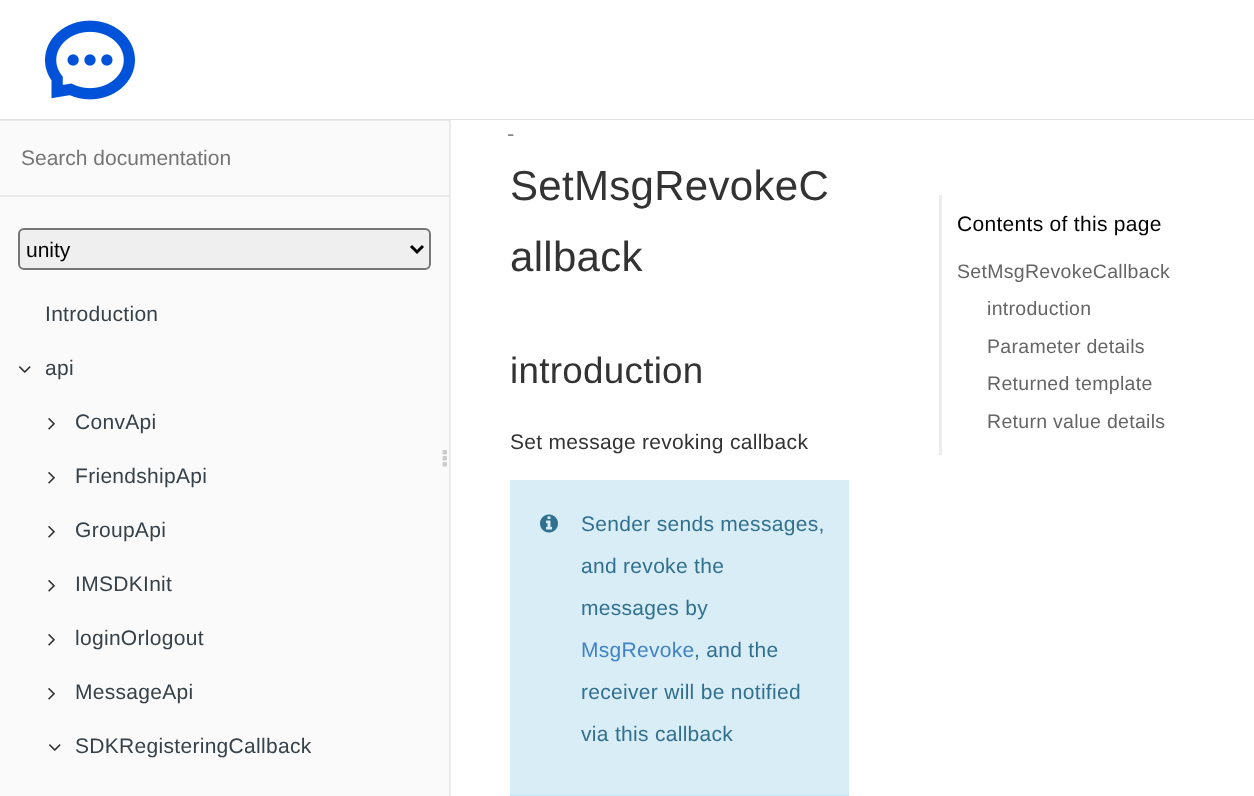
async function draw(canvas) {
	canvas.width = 1254;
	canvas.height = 796;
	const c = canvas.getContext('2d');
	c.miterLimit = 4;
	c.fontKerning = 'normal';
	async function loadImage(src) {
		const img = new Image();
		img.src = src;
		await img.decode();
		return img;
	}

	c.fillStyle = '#fff';
	c.fillRect(0, 0, 1254, 796);
	c.fillStyle = '#e2e2e2';
	c.fillRect(0, 119, 1254, 1);
	c.drawImage(await loadImage('img1.png'), 45, 20, 90, 80);
	for (const [x, y, w, h, color] of [
		[0, 121, 449, 675, '#fafafa'],
		[449, 120, 1, 676, '#e8e8e8'],
		[0, 120, 449, 1, '#e9e9e9'],
		[0, 195, 449, 2, '#e9e9e9'],
	]) {
		c.fillStyle = color;
		c.fillRect(x, y, w, h);
	}
	c.font = '21px Liberation Sans';
	c.fillStyle = '#757575';
	c.fillText('Search documentation', 21, 165);
	c.fillStyle = '#efefef';
	c.beginPath();
	c.roundRect(19, 229, 411, 40, 5);
	c.fill();
	c.strokeStyle = '#767676';
	c.lineWidth = 2;
	c.stroke();
	c.beginPath();
	c.moveTo(411, 246);
	c.lineTo(417, 252);
	c.lineTo(423, 246);
	c.strokeStyle = '#000';
	c.lineWidth = 3;
	c.stroke();
	c.fillStyle = '#000';
	c.fillText('unity', 26, 257);
	c.letterSpacing = '0.3px';
	c.fillStyle = '#364149';
	c.fillText('Introduction', 45, 321);
	c.drawImage(await loadImage('img2.png'), 19, 366, 12, 7);
	c.fillText('api', 45, 375);
	c.drawImage(await loadImage('img3.png'), 48, 418, 7, 12);
	c.fillText('ConvApi', 75, 429);
	c.drawImage(await loadImage('img3.png'), 48, 472, 7, 12);
	c.fillText('FriendshipApi', 75, 483);
	c.drawImage(await loadImage('img3.png'), 48, 526, 7, 12);
	c.fillText('GroupApi', 75, 537);
	c.drawImage(await loadImage('img3.png'), 48, 580, 7, 12);
	c.fillText('IMSDKInit', 75, 591);
	c.drawImage(await loadImage('img3.png'), 48, 634, 7, 12);
	c.fillText('loginOrlogout', 75, 645);
	c.drawImage(await loadImage('img3.png'), 48, 688, 7, 12);
	c.fillText('MessageApi', 75, 699);
	c.drawImage(await loadImage('img2.png'), 49, 744, 12, 7);
	c.fillText('SDKRegisteringCallback', 75, 753);
	c.drawImage(await loadImage('img4.png'), 442, 450, 5, 17);
	c.fillStyle = '#ededed';
	c.fillRect(450, 120, 1, 676);
	c.font = '22px Liberation Sans';
	c.fillStyle = '#7e888b';
	c.fillText('-', 507, 141);
	c.font = '42px Liberation Sans';
	c.fillStyle = '#333';
	c.fillText('SetMsgRevokeC', 510, 200);
	c.fillText('allback', 510, 271);
	c.font = '36.75px Liberation Sans';
	c.fillText('introduction', 510, 383);
	c.font = '21px Liberation Sans';
	c.fillText('Set message revoking callback', 510, 449);
	c.fillStyle = '#d9edf7';
	c.fillRect(510, 480, 339, 315);
	c.fillStyle = '#bce8f1';
	c.fillRect(510, 795, 339, 1);
	c.drawImage(await loadImage('img5.png'), 540, 514, 18, 19);
	c.fillStyle = '#31708f';
	for (const [text, x, y] of [
		['Sender sends messages,', 581, 531],
		['and revoke the', 581, 573],
		['messages by', 581, 615],
	]) {
		c.fillText(text, x, y);
	}
	c.fillStyle = '#4183c4';
	c.fillText('MsgRevoke', 581, 657);
	c.fillStyle = '#31708f';
	for (const [text, x, y] of [
		[', and the', 694, 657],
		['receiver will be notified', 581, 699],
		['via this callback', 581, 741],
	]) {
		c.fillText(text, x, y);
	}
	c.fillStyle = '#ececec';
	c.fillRect(939, 195, 3, 260);
	c.fillStyle = '#000';
	c.fillText('Contents of this page', 957, 231);
	c.font = '19.5px Liberation Sans';
	c.fillStyle = '#656565';
	for (const [text, x, y] of [
		['SetMsgRevokeCallback', 957, 278],
		['introduction', 987, 315],
		['Parameter details', 987, 353],
		['Returned template', 987, 390],
		['Return value details', 987, 428],
	]) {
		c.fillText(text, x, y);
	}
}

draw(document.querySelector('canvas'));
